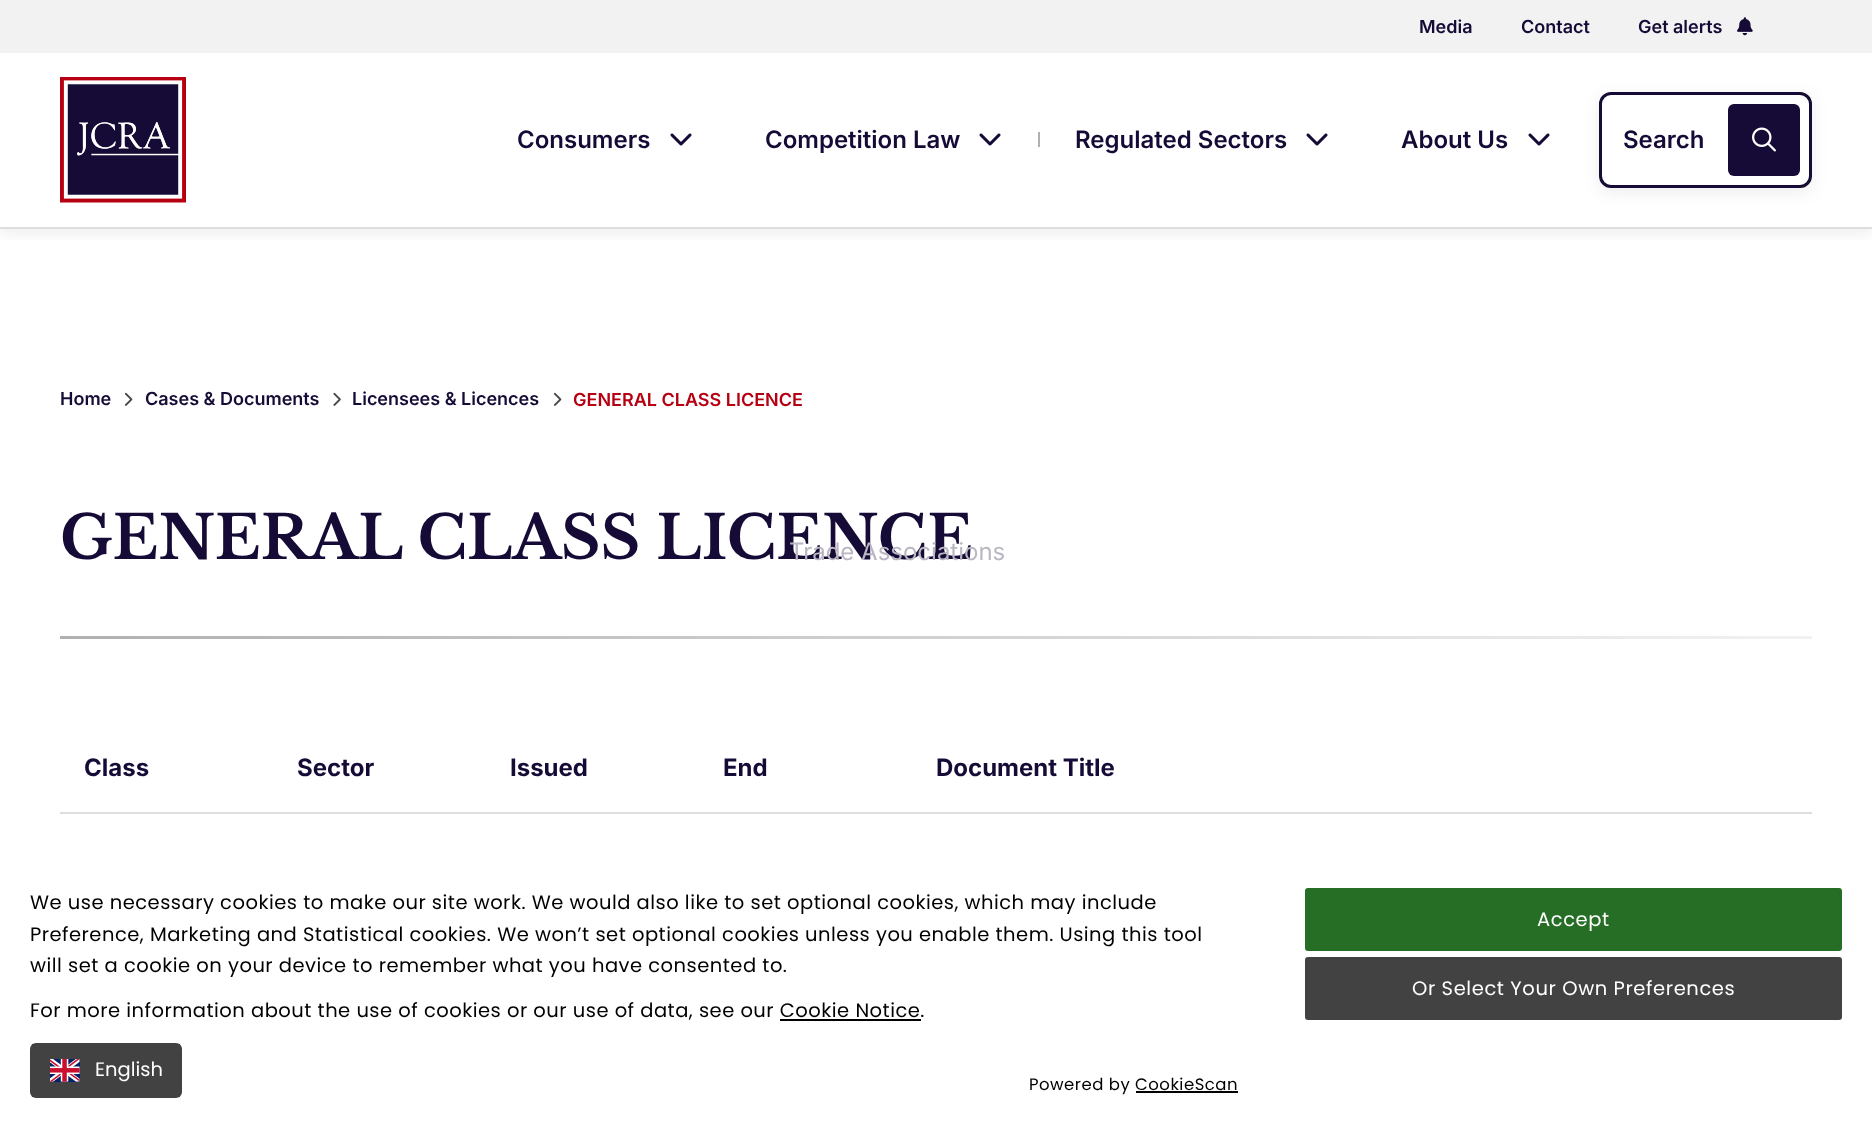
async function draw(canvas) {
	canvas.width = 1872;
	canvas.height = 1128;
	const c = canvas.getContext('2d');
	c.miterLimit = 4;
	c.fontKerning = 'normal';
	async function loadImage(src) {
		const img = new Image();
		img.src = src;
		await img.decode();
		return img;
	}
	let gradient;

	c.fillStyle = '#fff';
	c.fillRect(0, 0, 1872, 1128);
	c.save();
	c.beginPath();
	c.rect(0, 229, 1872, 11);
	c.clip();
	c.fillStyle = '#4647491a';
	c.filter = 'blur(8px)';
	c.beginPath();
	c.rect(0, 5, 1872, 228);
	c.fill();
	c.filter = 'none';
	c.restore();
	c.fillStyle = '#dedede';
	c.fillRect(0, 227, 1872, 2);
	c.fillStyle = '#f2f2f2';
	c.fillRect(0, 0, 1872, 53);
	c.font = '600 18px Inter';
	c.fillStyle = '#160b36';
	for (const [text, x, y] of [
		['Media', 1419, 33],
		['Contact', 1521, 33],
		['Get alerts', 1638, 33],
	]) {
		c.fillText(text, x, y);
	}
	c.drawImage(await loadImage('img1.png'), 1737, 17, 16, 19);
	c.drawImage(await loadImage('img2.png'), 60, 77, 126, 126);
	c.font = '600 24px Inter';
	c.fillText('Consumers', 517, 148);
	c.drawImage(await loadImage('img3.png'), 670, 133, 22, 13);
	c.fillText('Competition Law', 765, 148);
	c.drawImage(await loadImage('img3.png'), 979, 133, 22, 13);
	c.font = 'bold 60px Libre Baskerville';
	c.fillText('GENERAL CLASS LICENCE', 60, 559);
	c.font = '24px Inter';
	c.fillStyle = '#bab7c3';
	c.fillText('Trade Associations', 789, 560);
	c.fillStyle = '#b0b0b0';
	c.fillRect(1038, 132, 2, 15);
	c.font = '600 24px Inter';
	c.fillStyle = '#160b36';
	c.fillText('Regulated Sectors', 1075, 148);
	c.drawImage(await loadImage('img3.png'), 1306, 133, 22, 13);
	c.fillText('About Us', 1401, 148);
	c.drawImage(await loadImage('img3.png'), 1528, 133, 22, 13);
	c.fillStyle = '#4647491a';
	c.filter = 'blur(8px)';
	c.beginPath();
	c.roundRect(1599, 96, 213, 96, 12);
	c.fill();
	c.filter = 'none';
	c.fillStyle = '#fff';
	c.beginPath();
	c.roundRect(1600.5, 93.5, 210, 93, 10.5);
	c.fill();
	c.strokeStyle = '#160b36';
	c.lineWidth = 3;
	c.stroke();
	c.fillStyle = '#160b36';
	c.fillText('Search', 1623, 148);
	c.beginPath();
	c.roundRect(1728, 104, 72, 72, 6);
	c.fill();
	c.drawImage(await loadImage('img4.png'), 1752, 127, 24, 25);
	c.font = '600 18px Inter';
	c.fillText('Home', 60, 405);
	c.drawImage(await loadImage('img5.png'), 124, 392, 9, 14);
	c.fillText('Cases & Documents', 145, 405);
	c.drawImage(await loadImage('img6.png'), 333, 392, 8, 14);
	c.fillText('Licensees & Licences', 352, 405);
	c.drawImage(await loadImage('img5.png'), 553, 392, 9, 14);
	c.fillStyle = '#b60011';
	c.fillText('GENERAL CLASS LICENCE', 573, 406);
	gradient = c.createLinearGradient(60, 638, 1812, 637);
	gradient.addColorStop(0, '#b0b0b0');
	gradient.addColorStop(1, '#f2f2f2');
	c.fillStyle = gradient;
	c.fillRect(60, 636, 1752, 3);
	c.fillStyle = '#dedede';
	c.fillRect(60, 812, 1752, 2);
	c.font = 'bold 24px Inter';
	c.fillStyle = '#160b36';
	for (const [text, x, y] of [
		['Class', 84, 776],
		['Sector', 297, 776],
		['Issued', 510, 776],
		['End', 723, 776],
		['Document Title', 936, 776],
	]) {
		c.fillText(text, x, y);
	}
	c.letterSpacing = '0.49px';
	c.font = '19.5px Poppins';
	c.fillStyle = '#000';
	for (const [text, x, y] of [
		['We use necessary cookies to make our site work. We would also like to set optional cookies, which may include', 30, 909],
		['Preference, Marketing and Statistical cookies. We won’t set optional cookies unless you enable them. Using this tool', 30, 941],
		['will set a cookie on your device to remember what you have consented to.', 30, 972],
		['For more information about the use of cookies or our use of data, see our Cookie Notice.', 30, 1017],
	]) {
		c.fillText(text, x, y);
	}
	c.fillRect(780, 1019, 141, 2);
	c.fillStyle = '#424242';
	c.beginPath();
	c.roundRect(30, 1043, 152, 55, 6);
	c.fill();
	c.fillRect(32, 1044, 148, 53);
	c.drawImage(await loadImage('img7.png'), 50, 1059, 30, 23);
	c.letterSpacing = '0px';
	c.fillStyle = '#fff';
	c.fillText('English', 95, 1076);
	c.letterSpacing = '0.49px';
	c.font = '16.5px Poppins';
	c.fillStyle = '#000';
	c.fillText('Powered by CookieScan', 1029, 1090);
	c.fillRect(1136, 1091, 102, 2);
	c.fillStyle = '#266d26';
	c.beginPath();
	c.roundRect(1306, 889, 535, 61, 2);
	c.fill();
	c.strokeStyle = '#266d26';
	c.lineWidth = 2;
	c.stroke();
	c.letterSpacing = '0.6px';
	c.font = '19.5px Poppins';
	c.fillStyle = '#fff';
	c.fillText('Accept', 1537, 926);
	c.fillStyle = '#424242';
	c.beginPath();
	c.roundRect(1306, 958, 535, 61, 2);
	c.fill();
	c.strokeStyle = '#424242';
	c.stroke();
	c.fillStyle = '#fff';
	c.fillText('Or Select Your Own Preferences', 1412, 995);
}

draw(document.querySelector('canvas'));
